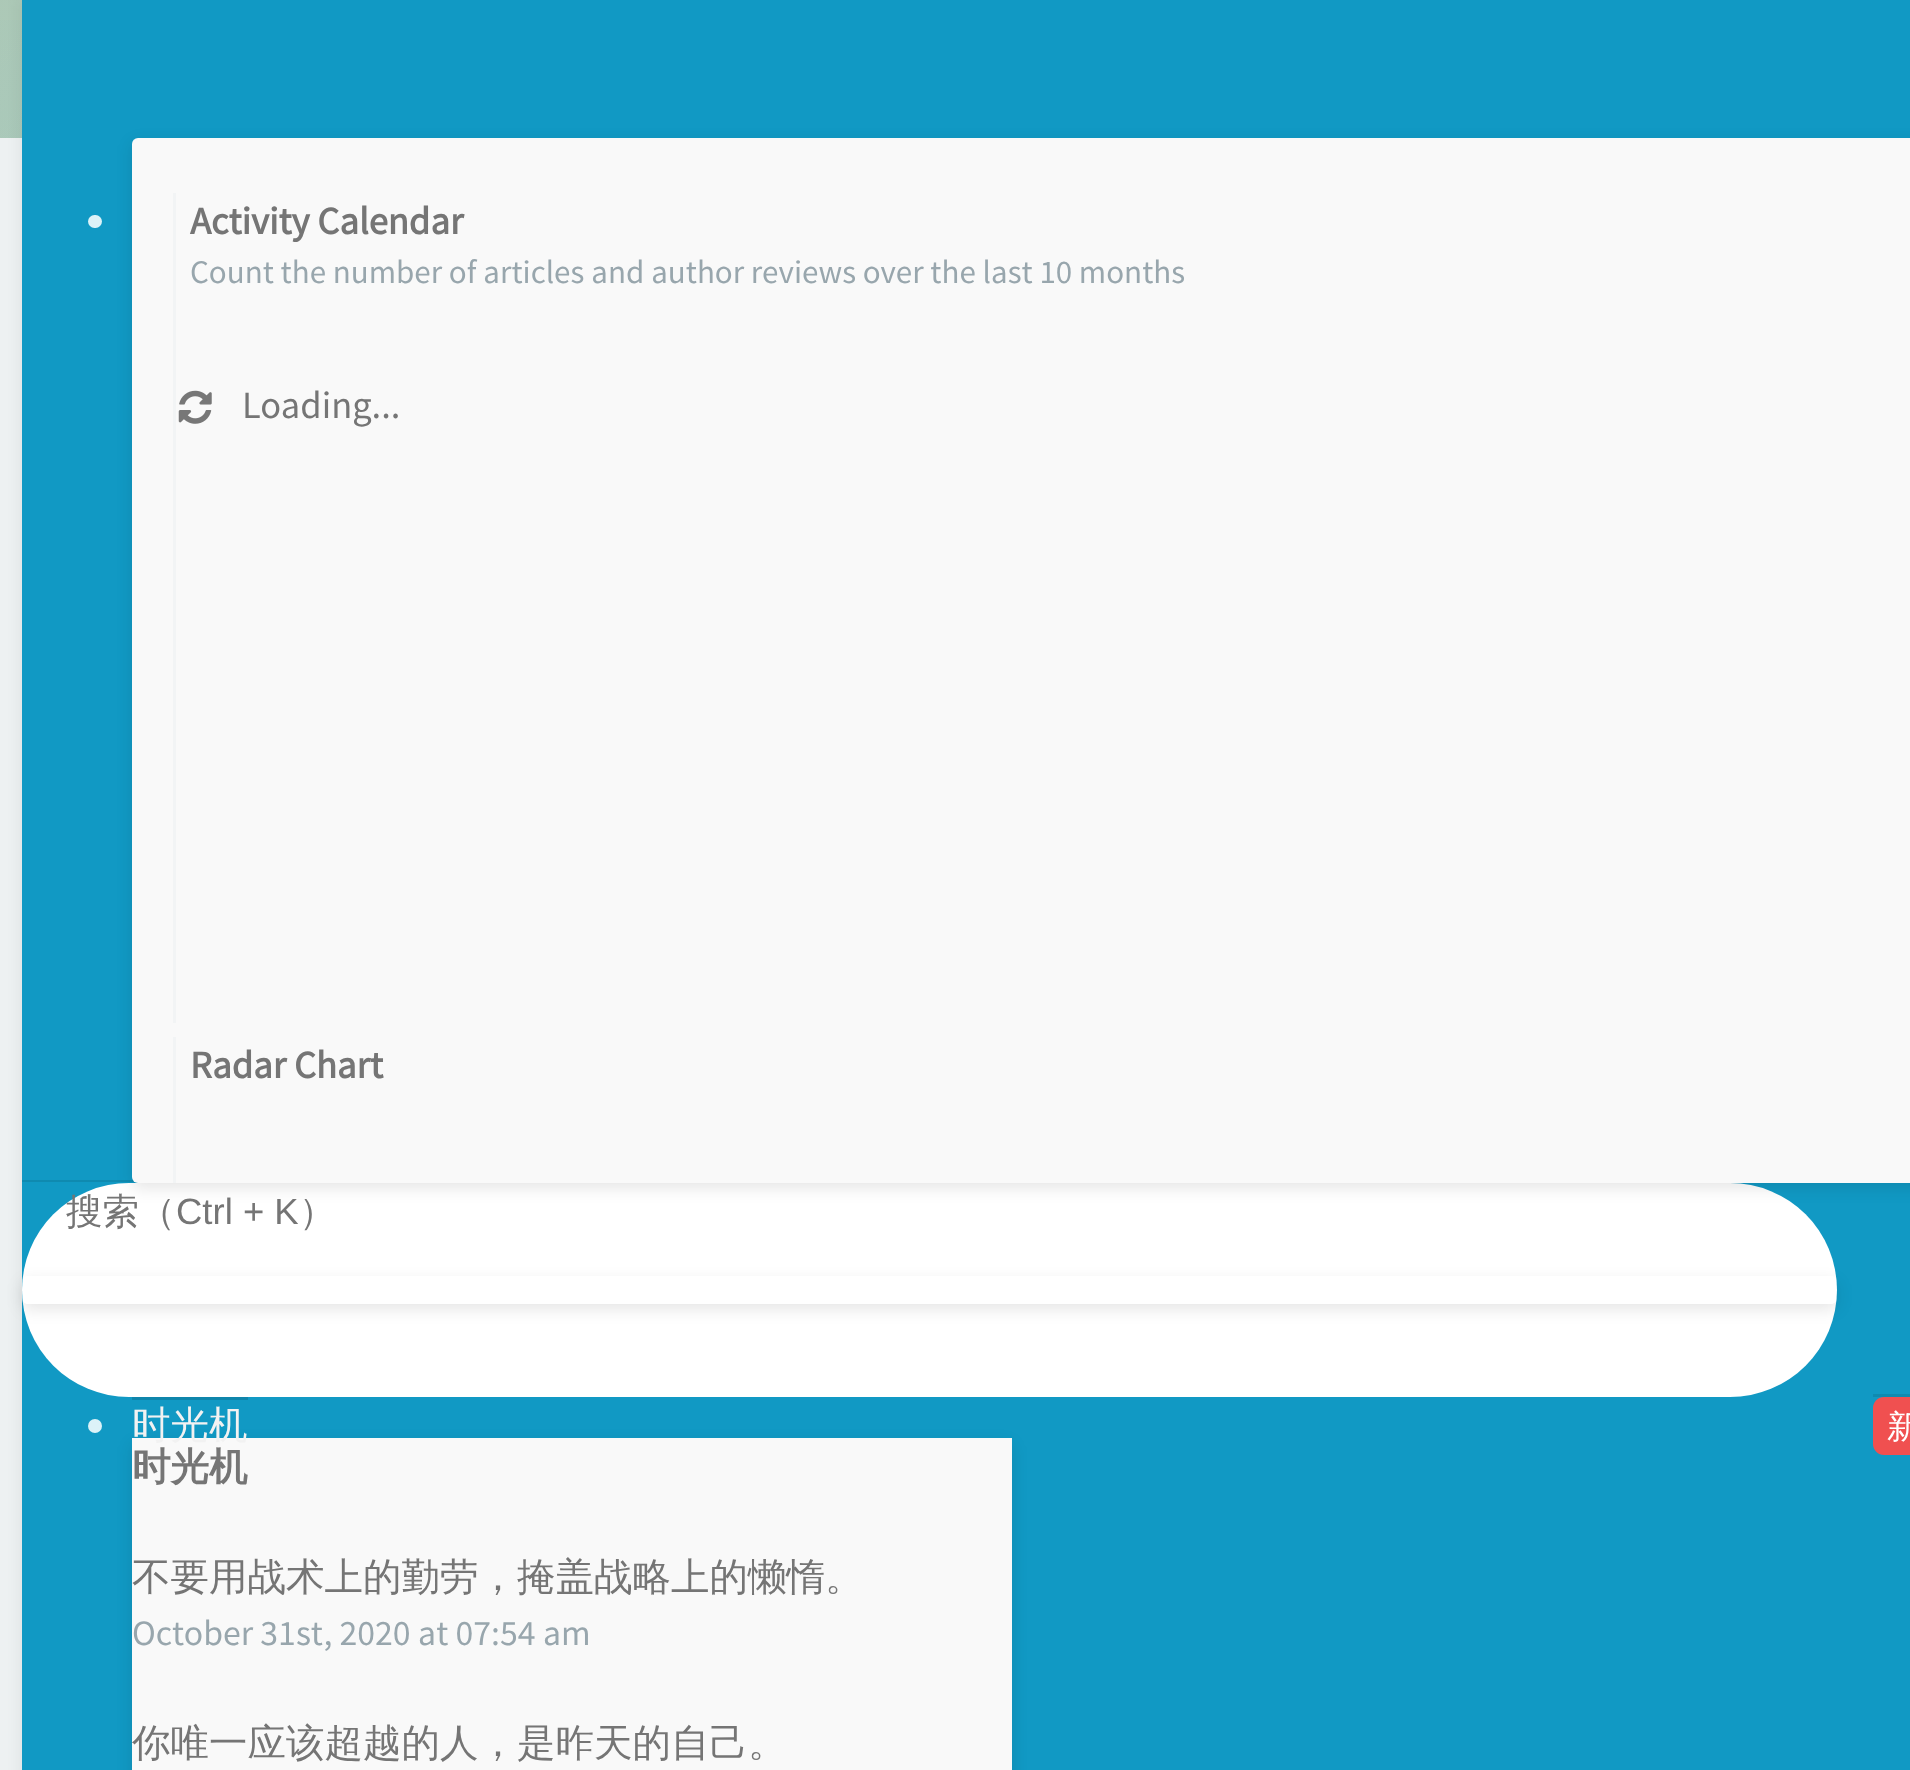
async function draw(canvas) {
	canvas.width = 1910;
	canvas.height = 1770;
	const c = canvas.getContext('2d');
	c.miterLimit = 4;
	c.fontKerning = 'normal';
	async function loadImage(src) {
		const img = new Image();
		img.src = src;
		await img.decode();
		return img;
	}
	let gradient;

	c.fillStyle = '#fff';
	c.fillRect(0, 0, 1910, 1770);
	gradient = c.createLinearGradient(-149, -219, 1876, 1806);
	gradient.addColorStop(0, '#a6c4b2');
	gradient.addColorStop(0.82, '#deeddc');
	c.fillStyle = gradient;
	c.fillRect(0, 0, 22, 138);
	gradient = c.createRadialGradient(956, 886, 0, 956, 886, 2676);
	gradient.addColorStop(0.3, '#8fc0c199');
	gradient.addColorStop(0.5, '#8fc0c100');
	c.fillStyle = gradient;
	c.fillRect(0, 20, 22, 118);
	c.fillStyle = '#edf1f2';
	c.fillRect(0, 138, 22, 1632);
	c.fillStyle = '#0000000d';
	c.filter = 'blur(7px)';
	c.beginPath();
	c.rect(19, 0, 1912, 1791);
	c.fill();
	c.filter = 'none';
	c.fillStyle = '#1199c4';
	c.fillRect(22, 0, 1888, 1770);
	c.fillStyle = '#dcf2f8';
	c.beginPath();
	c.roundRect(88, 215, 14, 13, 6.5);
	c.fill();
	c.fillStyle = '#0f8ab0';
	c.fillRect(22, 1180, 113, 2);
	c.fillStyle = '#fff';
	c.beginPath();
	c.roundRect(22, 1183, 1815, 214, 107);
	c.fill();
	c.fillStyle = '#0000001a';
	c.filter = 'blur(8px)';
	c.beginPath();
	c.roundRect(132, 143, 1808, 1045, 6);
	c.fill();
	c.filter = 'none';
	c.fillStyle = '#f9f9f9';
	c.beginPath();
	c.roundRect(132, 138, 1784, 1045, 6);
	c.fill();
	c.fillStyle = '#f2f4f5';
	c.fillRect(173, 193, 3, 830);
	c.font = 'bold 38.5px Source Sans Pro';
	c.fillStyle = '#757575';
	c.fillText('Activity Calendar', 190, 234);
	c.font = '33px Source Sans Pro';
	c.fillStyle = '#98a6ad';
	c.fillText('Count the number of articles and author reviews over the last 10 months', 190, 283);
	c.drawImage(await loadImage('img1.png'), 178, 390, 34, 34);
	c.font = '38.5px Source Sans Pro';
	c.fillStyle = '#757575';
	c.fillText('Loading...', 242, 418);
	c.fillStyle = '#f2f4f5';
	c.fillRect(173, 1037, 3, 146);
	c.font = 'bold 38.5px Source Sans Pro';
	c.fillStyle = '#757575';
	c.fillText('Radar Chart', 190, 1078);
	c.font = '500 36.5px WenQuanYi Zen Hei';
	c.fillText('搜索（', 66, 1224);
	c.font = '36.5px Liberation Sans';
	c.fillText('Ctrl + K', 176, 1224);
	c.font = '500 36.5px WenQuanYi Zen Hei';
	c.fillText('）', 299, 1224);
	c.save();
	c.beginPath();
	c.moveTo(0, 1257);
	c.lineTo(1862, 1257);
	c.lineTo(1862, 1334);
	c.lineTo(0, 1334);
	c.closePath();
	c.moveTo(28, 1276);
	c.lineTo(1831, 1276);
	c.bezierCurveTo(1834.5, 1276, 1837, 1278.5, 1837, 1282);
	c.lineTo(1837, 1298);
	c.bezierCurveTo(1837, 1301.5, 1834.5, 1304, 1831, 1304);
	c.lineTo(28, 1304);
	c.bezierCurveTo(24.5, 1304, 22, 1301.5, 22, 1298);
	c.lineTo(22, 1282);
	c.bezierCurveTo(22, 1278.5, 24.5, 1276, 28, 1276);
	c.closePath();
	c.clip('evenodd');
	c.fillStyle = '#0000001a';
	c.filter = 'blur(8px)';
	c.beginPath();
	c.roundRect(22, 1282, 1815, 27, 6);
	c.fill();
	c.filter = 'none';
	c.restore();
	c.fillStyle = '#dcf2f8';
	c.beginPath();
	c.arc(95, 1426, 7, 0, 2 * Math.PI);
	c.fill();
	c.fillStyle = '#0f85ab';
	c.beginPath();
	c.moveTo(132, 1397);
	c.lineTo(132, 1400);
	c.lineTo(248, 1400);
	c.lineTo(248, 1447);
	c.lineTo(248, 1397);
	c.closePath();
	c.fill();
	c.fillStyle = '#0f8ab0';
	c.fillRect(1873, 1394, 37, 3);
	c.fillStyle = '#0000001a';
	c.filter = 'blur(8px)';
	c.beginPath();
	c.roundRect(132, 1444, 880, 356, 6);
	c.fill();
	c.filter = 'none';
	c.fillStyle = '#f9f9f9';
	c.fillRect(132, 1438, 880, 332);
	c.font = '500 38.5px WenQuanYi Zen Hei';
	c.fillStyle = '#f2f2f2';
	c.fillText('时光机', 132, 1438);
	c.fillStyle = '#f05050';
	c.beginPath();
	c.roundRect(1873, 1397, 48, 58, 11);
	c.fill();
	c.font = '500 33px WenQuanYi Zen Hei';
	c.fillStyle = '#fff';
	c.fillText('新', 1887, 1438);
	c.font = 'bold 38.5px WenQuanYi Zen Hei';
	c.fillStyle = '#757575';
	c.fillText('时光机', 132, 1480);
	c.font = '500 38.5px WenQuanYi Zen Hei';
	c.fillText('不要用战术上的勤劳，掩盖战略上的懒惰。', 132, 1590);
	c.font = '35.75px Source Sans Pro';
	c.fillStyle = '#98a6ad';
	c.fillText('October 31st, 2020 at 07:54 am', 132, 1645);
	c.font = '500 38.5px WenQuanYi Zen Hei';
	c.fillStyle = '#757575';
	c.fillText('你唯一应该超越的人，是昨天的自己。', 132, 1756);
}

draw(document.querySelector('canvas'));
